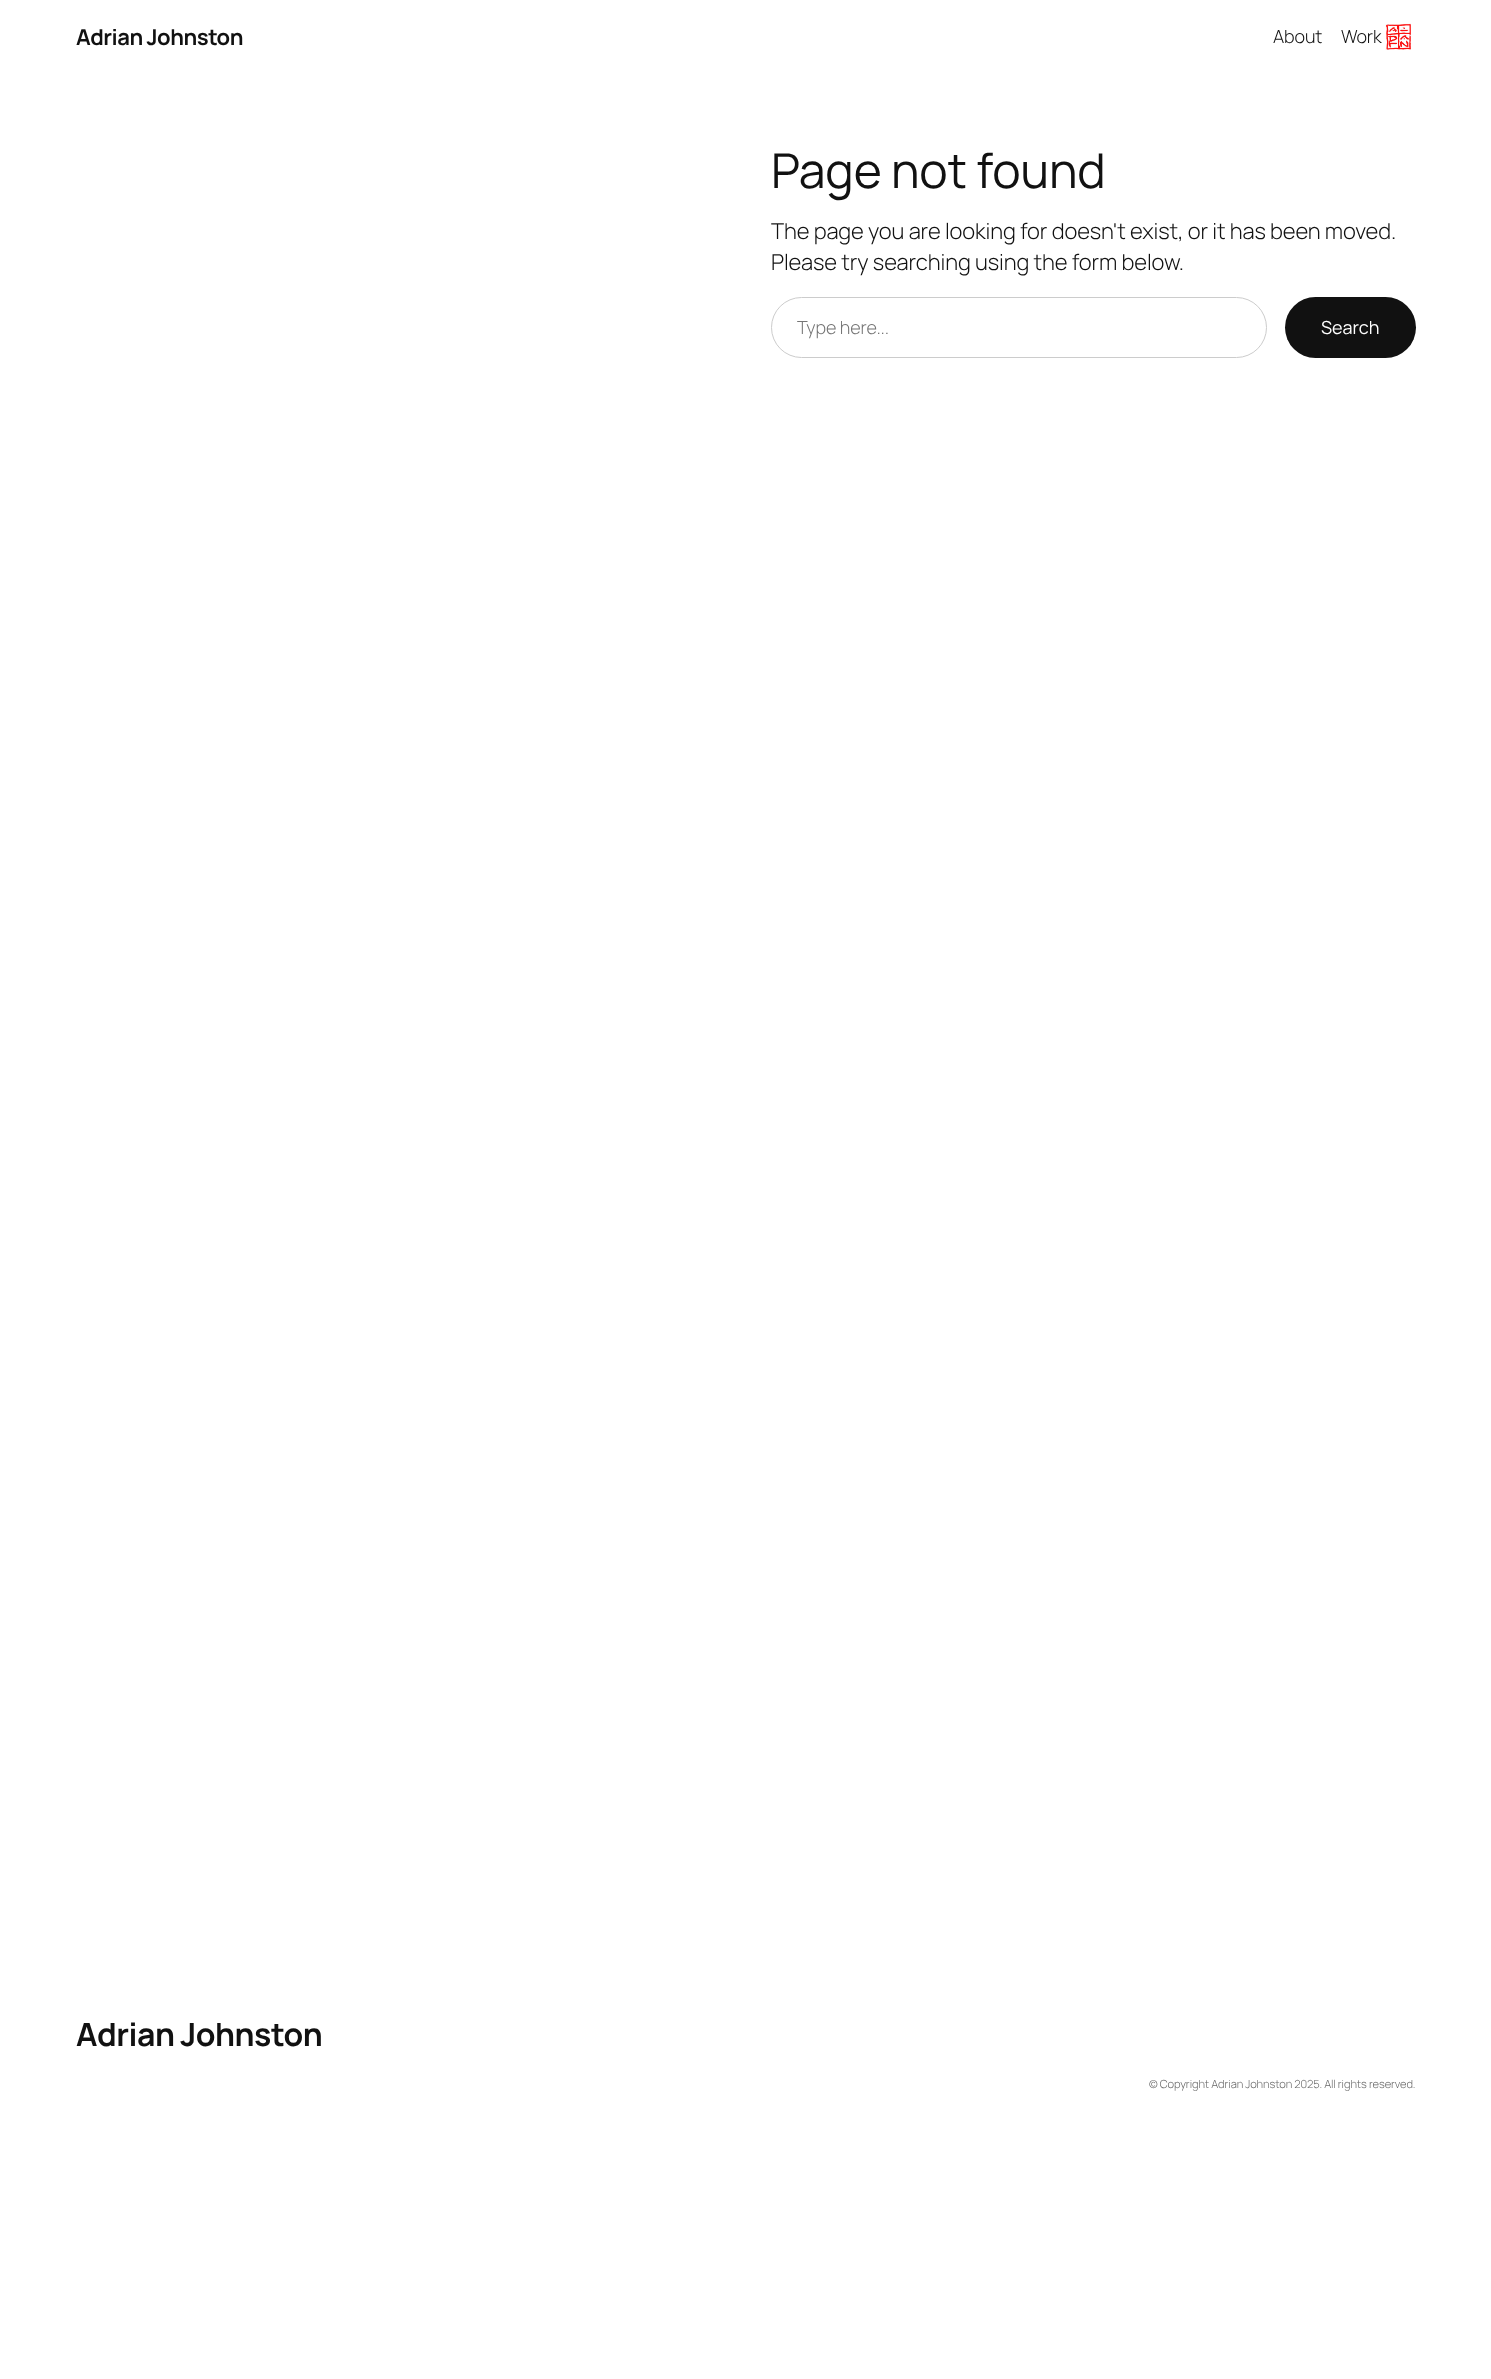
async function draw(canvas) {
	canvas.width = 1491;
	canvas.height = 2379;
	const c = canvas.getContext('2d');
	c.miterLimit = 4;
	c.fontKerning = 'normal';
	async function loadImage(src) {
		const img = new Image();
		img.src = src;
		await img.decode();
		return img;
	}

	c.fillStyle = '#fff';
	c.fillRect(0, 0, 1491, 2379);
	c.letterSpacing = '-0.5px';
	c.font = 'bold 22px Manrope';
	c.fillStyle = '#111';
	c.fillText('Adrian Johnston', 76, 45);
	c.letterSpacing = '-0.1px';
	c.font = '300 18px Manrope';
	c.fillText('About', 1273, 43);
	c.fillText('Work', 1341, 43);
	c.drawImage(await loadImage('img1.png'), 1385, 23, 26, 27);
	c.font = '48px Manrope';
	c.fillText('Page not found', 771, 188);
	c.font = '300 22px Manrope';
	c.fillText('The page you are looking for doesn\'t exist, or it has been moved.', 771, 239);
	c.fillText('Please try searching using the form below.', 771, 270);
	c.beginPath();
	c.roundRect(771.5, 297.5, 495, 60, 30);
	c.strokeStyle = '#ccc';
	c.stroke();
	c.font = '300 18px Manrope';
	c.fillStyle = '#757575';
	c.fillText('Type here...', 797, 334);
	c.fillStyle = '#111';
	c.beginPath();
	c.roundRect(1285, 297, 131, 61, 30.5);
	c.fill();
	c.letterSpacing = '0px';
	c.font = '18px Manrope';
	c.fillStyle = '#fff';
	c.fillText('Search', 1321, 334);
	c.letterSpacing = '-0.5px';
	c.font = 'bold 32px Manrope';
	c.fillStyle = '#111';
	c.fillText('Adrian Johnston', 76, 2046);
	c.letterSpacing = '-0.1px';
	c.font = '300 11.2px Manrope';
	c.fillStyle = '#686868';
	c.fillText('© Copyright Adrian Johnston 2025. All rights reserved.', 1149, 2088);
}

draw(document.querySelector('canvas'));
